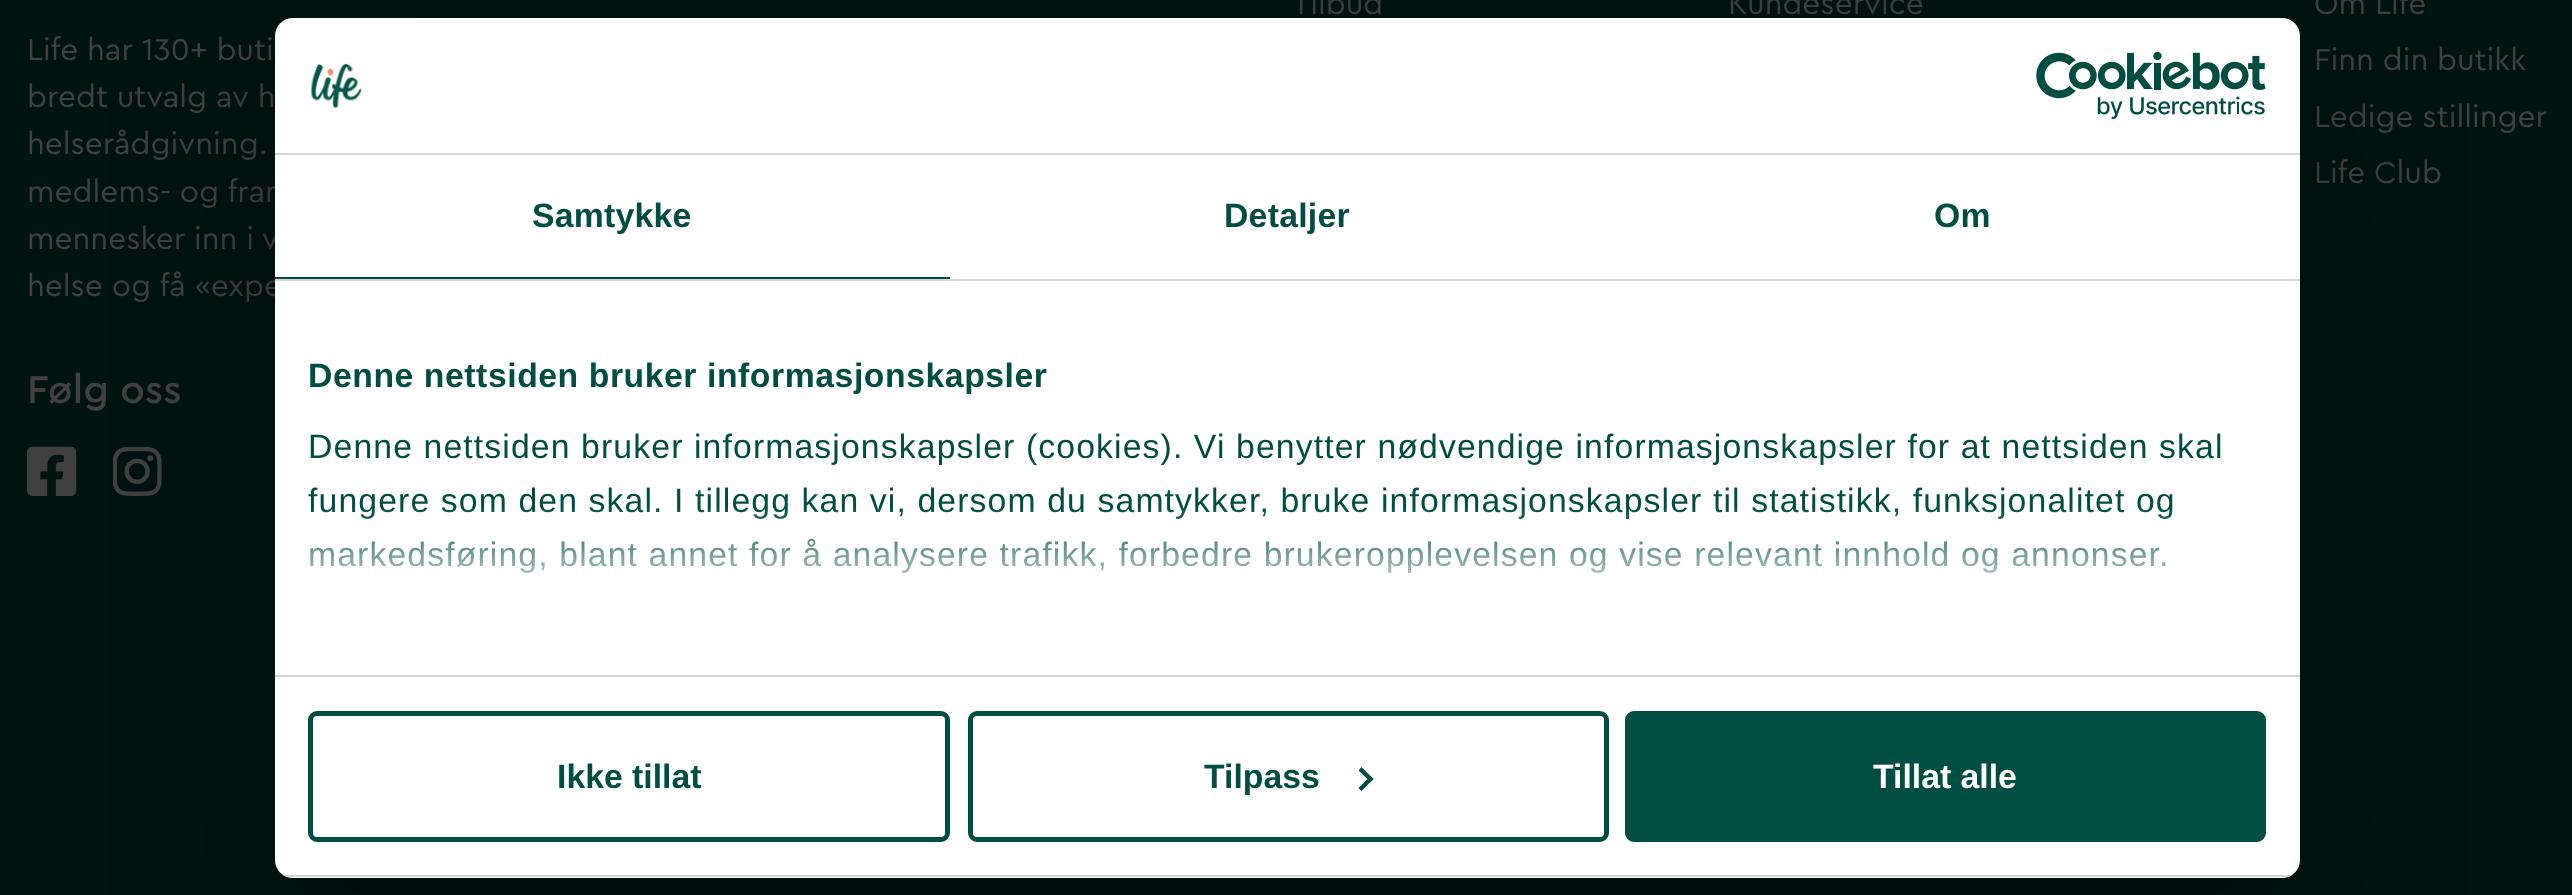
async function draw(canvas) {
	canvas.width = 2572;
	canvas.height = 895;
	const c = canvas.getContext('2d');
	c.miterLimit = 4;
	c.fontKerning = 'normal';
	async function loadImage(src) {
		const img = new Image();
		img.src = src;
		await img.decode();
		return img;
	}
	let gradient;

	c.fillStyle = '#001411';
	c.fillRect(0, 0, 2572, 895);
	c.font = '31.5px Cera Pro';
	c.fillStyle = '#404040';
	for (const [text, x, y] of [
		['Life har 130+ buti', 27, 60],
		['bredt utvalg av h', 27, 107],
		['helserådgivning.', 27, 154],
		['medlems- og fran', 27, 202],
		['mennesker inn i v', 27, 249],
		['helse og få «expe', 27, 296],
		['Tilbud', 1292, 14],
		['Kundeservice', 1728, 14],
		['Om Life', 2314, 14],
		['Finn din butikk', 2314, 70],
		['Ledige stillinger', 2314, 127],
		['Life Club', 2314, 183],
	]) {
		c.fillText(text, x, y);
	}
	c.font = '500 40.5px Cera Pro';
	c.fillText('Følg oss', 27, 403);
	c.drawImage(await loadImage('img1.png'), 27, 446, 50, 50);
	c.drawImage(await loadImage('img2.png'), 113, 446, 49, 50);
	c.fillStyle = '#0000004d';
	c.filter = 'blur(76.5px)';
	c.beginPath();
	c.roundRect(275, 90, 2025, 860, 18);
	c.fill();
	c.filter = 'none';
	c.fillStyle = '#fff';
	c.beginPath();
	c.roundRect(275, 18, 2025, 860, 18);
	c.fill();
	c.fillStyle = '#d6d6d6';
	c.fillRect(275, 153, 2025, 2);
	c.drawImage(await loadImage('img3.png'), 310, 63, 53, 46);
	c.drawImage(await loadImage('img4.png'), 2036, 52, 230, 67);
	c.fillRect(275, 279, 2025, 2);
	c.fillStyle = '#004e42';
	c.fillRect(275, 277, 675, 2);
	c.letterSpacing = '0.25px';
	c.font = 'bold 33.75px Liberation Sans';
	for (const [text, x, y] of [
		['Samtykke', 532, 227],
		['Detaljer', 1224, 227],
		['Om', 1934, 227],
	]) {
		c.fillText(text, x, y);
	}
	c.fillStyle = '#d6d6d6';
	c.fillRect(275, 675, 2025, 2);
	c.letterSpacing = '0.55px';
	c.fillStyle = '#004e42';
	c.fillText('Denne nettsiden bruker informasjonskapsler', 308, 387);
	c.letterSpacing = '1.12px';
	c.font = '33.75px Liberation Sans';
	for (const [text, x, y] of [
		['Denne nettsiden bruker informasjonskapsler (cookies). Vi benytter nødvendige informasjonskapsler for at nettsiden skal', 308, 458],
		['fungere som den skal. I tillegg kan vi, dersom du samtykker, bruke informasjonskapsler til statistikk, funksjonalitet og', 308, 512],
		['markedsføring, blant annet for å analysere trafikk, forbedre brukeropplevelsen og vise relevant innhold og annonser.', 308, 566],
	]) {
		c.fillText(text, x, y);
	}
	gradient = c.createLinearGradient(1272, 675, 1272, 506);
	gradient.addColorStop(0, '#fff');
	gradient.addColorStop(0.5, '#ffffffcc');
	gradient.addColorStop(1, '#ffffff00');
	c.fillStyle = gradient;
	c.fillRect(310, 508, 1863, 65);
	c.save();
	c.beginPath();
	c.roundRect(275, 18, 2025, 860, 18);
	c.clip();
	c.fillStyle = '#d6d6d6';
	c.fillRect(275, 875, 2025, 2);
	c.restore();
	c.beginPath();
	c.roundRect(310.5, 713.5, 637, 126, 6.5);
	c.strokeStyle = '#004e42';
	c.lineWidth = 5;
	c.stroke();
	c.letterSpacing = '0px';
	c.font = 'bold 33.75px Liberation Sans';
	c.fillStyle = '#004e42';
	c.fillText('Ikke tillat', 557, 788);
	c.beginPath();
	c.roundRect(970.5, 713.5, 636, 126, 6.5);
	c.stroke();
	c.fillText('Tilpass', 1204, 788);
	c.beginPath();
	c.moveTo(1361.5, 767);
	c.lineTo(1373.5, 779);
	c.lineTo(1370.5, 782);
	c.lineTo(1358.5, 770.5);
	c.closePath();
	c.fill();
	c.beginPath();
	c.moveTo(1370.5, 776);
	c.lineTo(1373.5, 779);
	c.lineTo(1361.5, 791);
	c.lineTo(1358.5, 788);
	c.closePath();
	c.fill();
	c.beginPath();
	c.roundRect(1627.5, 713.5, 636, 126, 6.5);
	c.fill();
	c.stroke();
	c.fillStyle = '#fff';
	c.fillText('Tillat alle', 1873, 788);
}

draw(document.querySelector('canvas'));
